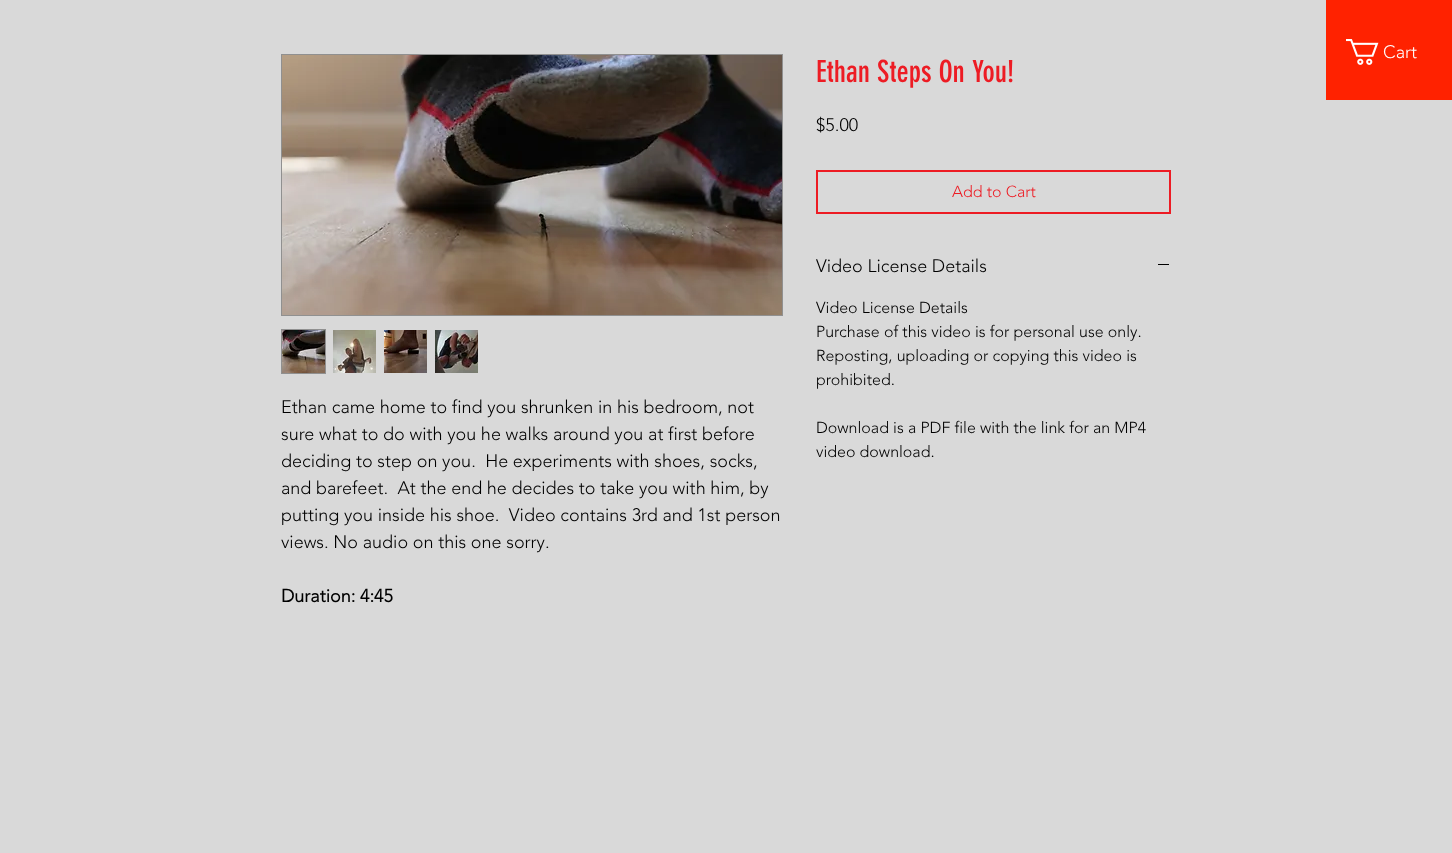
async function draw(canvas) {
	canvas.width = 1452;
	canvas.height = 853;
	const c = canvas.getContext('2d');
	c.miterLimit = 4;
	c.fontKerning = 'normal';
	async function loadImage(src) {
		const img = new Image();
		img.src = src;
		await img.decode();
		return img;
	}

	c.fillStyle = '#d9d9d9';
	c.fillRect(0, 0, 1452, 853);
	c.fillStyle = '#f20';
	c.fillRect(1326, 0, 126, 100);
	c.drawImage(await loadImage('img1.png'), 1346, 39, 33, 26);
	c.font = '300 18px "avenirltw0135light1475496"';
	c.fillStyle = '#fff';
	c.fillText('Cart', 1383, 58);
	c.font = '30px "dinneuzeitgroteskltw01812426"';
	c.fillStyle = '#ed1c24';
	c.fillText('Ethan Steps On You!', 816, 82);
	c.font = '300 18px "avenirltw0135light1475496"';
	c.fillStyle = '#000';
	c.fillText('$5.00', 816, 131);
	c.strokeStyle = '#ed1c24';
	c.lineWidth = 2;
	c.strokeRect(817, 171, 353, 42);
	c.font = '300 16px "avenirltw0135light1475496"';
	c.fillStyle = '#ed1c24';
	c.fillText('Add to Cart', 952, 197);
	c.font = '300 18px "avenirltw0135light1475496"';
	c.fillStyle = '#000';
	c.fillText('Video License Details', 816, 272);
	c.fillRect(1158, 264, 11, 1);
	c.font = '300 16px "avenirltw0135light1475496"';
	for (const [text, x, y] of [
		['Video License Details', 816, 313],
		['Purchase of this video is for personal use only.', 816, 337],
		['Reposting, uploading or copying this video is', 816, 361],
		['prohibited.', 816, 385],
		['Download is a PDF file with the link for an MP4', 816, 433],
		['video download.', 816, 457],
	]) {
		c.fillText(text, x, y);
	}
	c.strokeStyle = '#909090';
	c.lineWidth = 1;
	c.strokeRect(281.5, 54.5, 501, 261);
	c.drawImage(await loadImage('img2.png'), 282, 55, 500, 260);
	c.strokeRect(281.5, 329.5, 44, 44);
	c.drawImage(await loadImage('img3.png'), 282, 330, 43, 43);
	c.drawImage(await loadImage('img4.png'), 333, 330, 43, 43);
	c.drawImage(await loadImage('img5.png'), 384, 330, 43, 43);
	c.drawImage(await loadImage('img6.png'), 435, 330, 43, 43);
	c.font = '300 18px "avenirltw0135light1475496"';
	for (const [text, x, y] of [
		['Ethan came home to find you shrunken in his bedroom, not', 281, 413],
		['sure what to do with you he walks around you at first before', 281, 440],
		['deciding to step on you.  He experiments with shoes, socks,', 281, 467],
		['and barefeet.  At the end he decides to take you with him, by', 281, 494],
		['putting you inside his shoe.  Video contains 3rd and 1st person', 281, 521],
		['views. No audio on this one sorry.', 281, 548],
	]) {
		c.fillText(text, x, y);
	}
	c.font = 'bold 18px "avenirltw0135light1475496"';
	c.fillText('Duration: 4:45', 281, 602);
}

draw(document.querySelector('canvas'));
